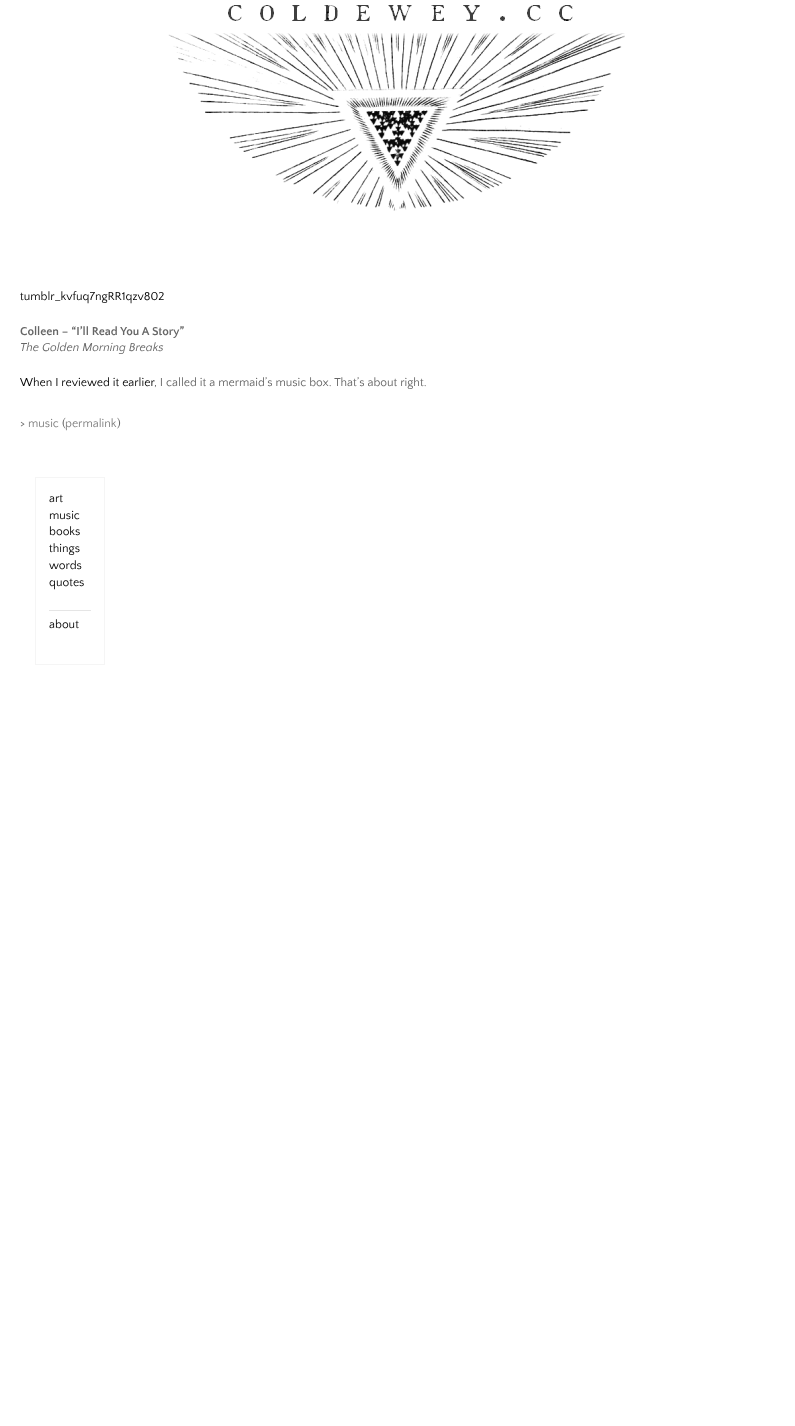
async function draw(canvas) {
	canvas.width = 795;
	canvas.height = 1426;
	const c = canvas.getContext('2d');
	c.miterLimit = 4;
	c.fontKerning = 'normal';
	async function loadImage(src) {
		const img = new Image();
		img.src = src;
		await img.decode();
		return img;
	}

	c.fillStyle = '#fff';
	c.fillRect(0, 0, 795, 1426);
	c.drawImage(await loadImage('img1.png'), 168, 5, 457, 206);
	c.font = '12px Quattrocento Sans';
	c.fillStyle = '#000';
	c.fillText('tumblr_kvfuq7ngRR1qzv802', 20, 300);
	c.font = 'bold 12px Quattrocento Sans';
	c.fillStyle = '#666';
	c.fillText('Colleen – “I’ll Read You A Story”', 20, 335);
	c.font = 'italic 12px Quattrocento Sans';
	c.fillText('The Golden Morning Breaks', 20, 351);
	c.font = '12px Quattrocento Sans';
	c.fillStyle = '#000';
	c.fillText('When I reviewed it earlier', 20, 386);
	c.fillStyle = '#666';
	c.fillText(', I called it a mermaid’s music box. That’s about right.', 154, 386);
	c.fillText('>', 20, 427);
	c.fillStyle = '#7f7f7f';
	c.fillText('music', 28, 427);
	c.fillStyle = '#666';
	c.fillText('(', 62, 427);
	c.fillStyle = '#7f7f7f';
	c.fillText('permalink', 65, 427);
	c.fillStyle = '#666';
	c.fillText(')', 117, 427);
	c.strokeStyle = '#f5f5f5';
	c.strokeRect(35.5, 477.5, 69, 187);
	c.fillStyle = '#000';
	for (const [text, x, y] of [
		['art', 49, 502],
		['music', 49, 519],
		['books', 49, 535],
		['things', 49, 552],
		['words', 49, 569],
		['quotes', 49, 586],
	]) {
		c.fillText(text, x, y);
	}
	c.fillStyle = '#e5e5e5';
	c.fillRect(49, 610, 42, 1);
	c.fillStyle = '#000';
	c.fillText('about', 49, 628);
}

draw(document.querySelector('canvas'));
